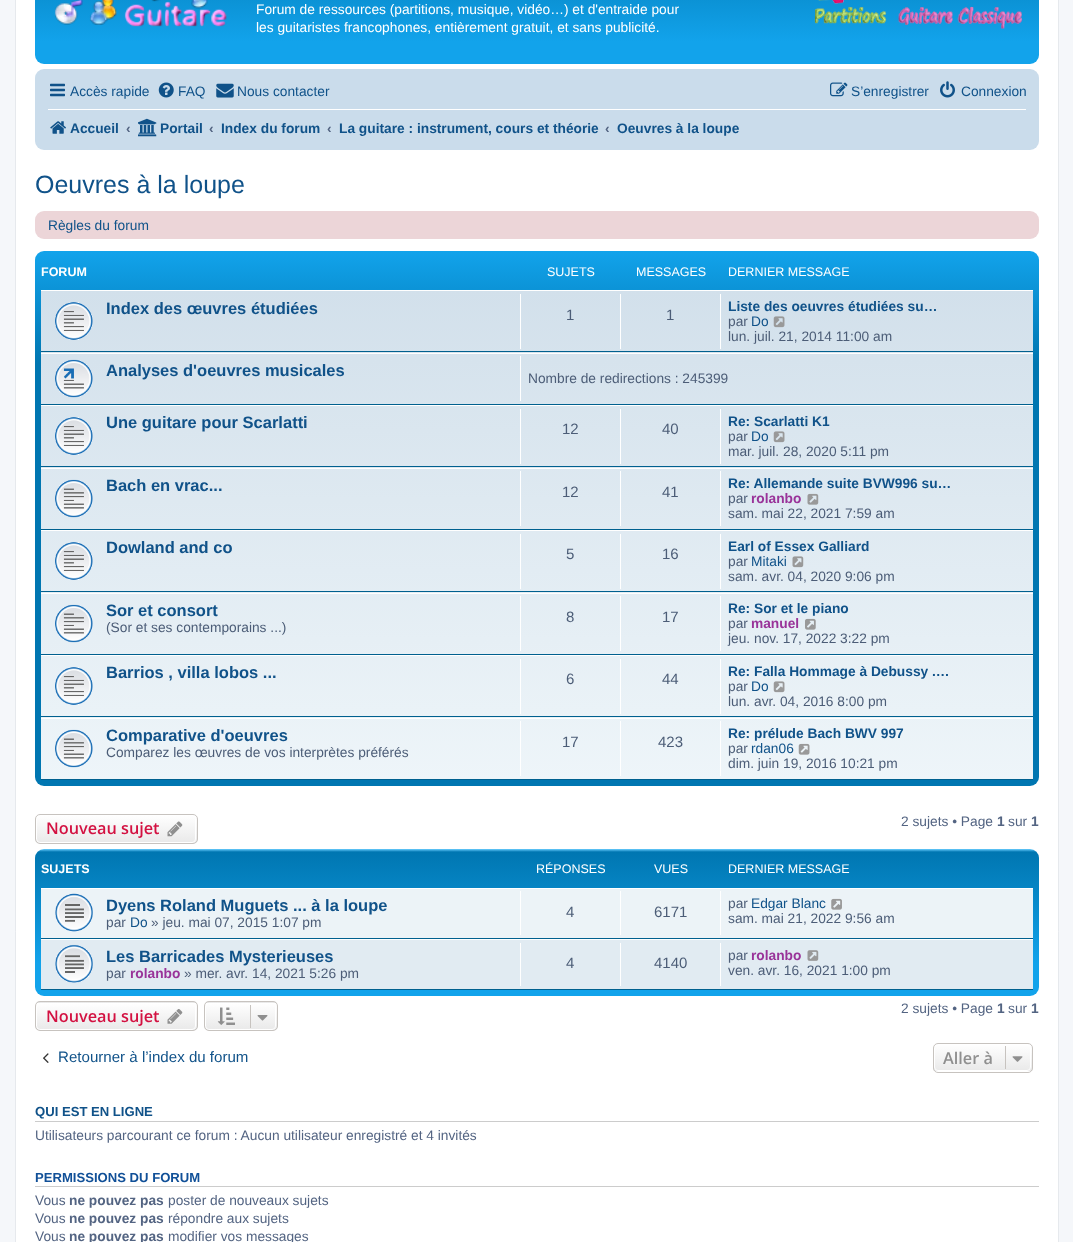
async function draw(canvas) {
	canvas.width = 1073;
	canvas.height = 1242;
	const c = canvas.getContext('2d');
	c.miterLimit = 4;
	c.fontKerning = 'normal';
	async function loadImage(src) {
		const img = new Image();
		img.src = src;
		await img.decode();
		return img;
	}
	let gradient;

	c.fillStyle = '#f5f7fa';
	c.fillRect(0, 0, 1073, 1242);
	c.fillStyle = '#fff';
	c.beginPath();
	c.rect(15.5, -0.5, 1043, 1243);
	c.fill();
	c.strokeStyle = '#e6e9ed';
	c.stroke();
	gradient = c.createLinearGradient(537, -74, 537, 64);
	gradient.addColorStop(0, '#6aceff');
	gradient.addColorStop(0.02, '#0076b1');
	gradient.addColorStop(0.84, '#12a3eb');
	gradient.addColorStop(1, '#12a3eb');
	c.fillStyle = gradient;
	c.beginPath();
	c.roundRect(35, -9, 1004, 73, 9);
	c.fill();
	c.drawImage(await loadImage('img1.png'), 54, 0, 173, 27);
	c.font = '13.75px Liberation Sans';
	c.fillStyle = '#fff';
	c.fillText('Forum de ressources (partitions, musique, vidéo…) et d\'entraide pour', 256, 14);
	c.fillText('les guitaristes francophones, entièrement gratuit, et sans publicité.', 256, 32);
	c.drawImage(await loadImage('img2.png'), 814, 0, 209, 29);
	c.fillStyle = '#cadceb';
	c.beginPath();
	c.roundRect(35, 69, 1004, 81, 9);
	c.fill();
	c.drawImage(await loadImage('img3.png'), 50, 83, 15, 14);
	c.fillStyle = '#105289';
	c.fillText('Accès rapide', 70, 96);
	c.drawImage(await loadImage('img4.png'), 158, 82, 16, 16);
	c.fillText('FAQ', 178, 96);
	c.drawImage(await loadImage('img5.png'), 216, 83, 18, 15);
	c.fillText('Nous contacter', 237, 96);
	c.drawImage(await loadImage('img6.png'), 830, 82, 18, 15);
	c.fillText('S’enregistrer', 851, 96);
	c.drawImage(await loadImage('img7.png'), 940, 81, 15, 17);
	c.fillText('Connexion', 961, 96);
	c.fillStyle = '#fff';
	c.fillRect(48, 109, 978, 1);
	c.drawImage(await loadImage('img8.png'), 50, 121, 16, 13);
	c.font = 'bold 13.75px Liberation Sans';
	c.fillStyle = '#105289';
	c.fillText('Accueil', 70, 133);
	c.fillStyle = '#536482';
	c.fillText('‹', 126, 133);
	c.drawImage(await loadImage('img9.png'), 138, 118, 19, 19);
	c.fillStyle = '#105289';
	c.fillText('Portail', 160, 133);
	c.fillStyle = '#536482';
	c.fillText('‹', 209, 133);
	c.fillStyle = '#105289';
	c.fillText('Index du forum', 221, 133);
	c.fillStyle = '#536482';
	c.fillText('‹', 327, 133);
	c.fillStyle = '#105289';
	c.fillText('La guitare : instrument, cours et théorie', 339, 133);
	c.fillStyle = '#536482';
	c.fillText('‹', 605, 133);
	c.fillStyle = '#105289';
	c.fillText('Oeuvres à la loupe', 617, 133);
	c.font = '25px Liberation Sans';
	c.fillText('Oeuvres à la loupe', 35, 193);
	c.fillStyle = '#ecd5d8';
	c.beginPath();
	c.roundRect(35, 211, 1004, 28, 9);
	c.fill();
	c.font = '13.75px Liberation Sans';
	c.fillStyle = '#105289';
	c.fillText('Règles du forum', 48, 230);
	gradient = c.createLinearGradient(537, 251, 537, 786);
	gradient.addColorStop(0, '#6aceff');
	gradient.addColorStop(0, '#12a3eb');
	gradient.addColorStop(0.21, '#0076b1');
	gradient.addColorStop(1, '#0076b1');
	c.fillStyle = gradient;
	c.beginPath();
	c.roundRect(35, 251, 1004, 535, 9);
	c.fill();
	c.font = 'bold 12.5px Liberation Sans';
	c.fillStyle = '#fff';
	c.fillText('FORUM', 41, 276);
	c.font = '12.5px Liberation Sans';
	for (const [text, x, y] of [
		['SUJETS', 547, 276],
		['MESSAGES', 636, 276],
		['DERNIER MESSAGE', 728, 276],
	]) {
		c.fillText(text, x, y);
	}
	gradient = c.createLinearGradient(537, 290, 537, 780);
	gradient.addColorStop(0, '#d2e0eb');
	gradient.addColorStop(1, '#eef5f9');
	c.fillStyle = gradient;
	c.fillRect(41, 291, 992, 488);
	c.fillStyle = '#fff';
	c.fillRect(41, 290, 992, 1);
	c.fillStyle = '#00608f';
	c.fillRect(41, 351, 992, 1);
	c.drawImage(await loadImage('img10.png'), 55, 302, 38, 38);
	c.font = 'bold 16.5px Liberation Sans';
	c.fillStyle = '#105289';
	c.fillText('Index des œuvres étudiées', 106, 314);
	c.fillStyle = '#fff';
	c.fillRect(520, 294, 1, 55);
	c.font = '15px Liberation Sans';
	c.fillStyle = '#4c5d77';
	c.fillText('1', 566, 320);
	c.fillStyle = '#fff';
	c.fillRect(620, 294, 1, 55);
	c.fillStyle = '#4c5d77';
	c.fillText('1', 666, 320);
	c.fillStyle = '#fff';
	c.fillRect(720, 294, 1, 55);
	c.font = 'bold 13.75px Liberation Sans';
	c.fillStyle = '#105289';
	c.fillText('Liste des oeuvres étudiées su…', 728, 311);
	c.font = '13.75px Liberation Sans';
	c.fillStyle = '#4c5d77';
	c.fillText('par', 728, 326);
	c.fillStyle = '#105289';
	c.fillText('Do', 751, 326);
	c.drawImage(await loadImage('img11.png'), 773, 316, 12, 12);
	c.fillStyle = '#4c5d77';
	c.fillText('lun. juil. 21, 2014 11:00 am', 728, 341);
	c.fillStyle = '#fff';
	c.fillRect(41, 353, 992, 1);
	c.fillStyle = '#00608f';
	c.fillRect(41, 404, 992, 1);
	c.drawImage(await loadImage('img12.png'), 55, 359, 38, 39);
	c.font = 'bold 16.5px Liberation Sans';
	c.fillStyle = '#105289';
	c.fillText('Analyses d\'oeuvres musicales', 106, 376);
	c.fillStyle = '#fff';
	c.fillRect(520, 356, 1, 45);
	c.font = '13.75px Liberation Sans';
	c.fillStyle = '#4c5d77';
	c.fillText('Nombre de redirections : 245399', 528, 383);
	c.fillStyle = '#fff';
	c.fillRect(41, 405, 992, 1);
	c.fillStyle = '#00608f';
	c.fillRect(41, 466, 992, 1);
	c.drawImage(await loadImage('img13.png'), 55, 417, 38, 38);
	c.font = 'bold 16.5px Liberation Sans';
	c.fillStyle = '#105289';
	c.fillText('Une guitare pour Scarlatti', 106, 428);
	c.fillStyle = '#fff';
	c.fillRect(520, 409, 1, 55);
	c.font = '15px Liberation Sans';
	c.fillStyle = '#4c5d77';
	c.fillText('12', 562, 434);
	c.fillStyle = '#fff';
	c.fillRect(620, 409, 1, 55);
	c.fillStyle = '#4c5d77';
	c.fillText('40', 662, 434);
	c.fillStyle = '#fff';
	c.fillRect(720, 409, 1, 55);
	c.font = 'bold 13.75px Liberation Sans';
	c.fillStyle = '#105289';
	c.fillText('Re: Scarlatti K1', 728, 426);
	c.font = '13.75px Liberation Sans';
	c.fillStyle = '#4c5d77';
	c.fillText('par', 728, 441);
	c.fillStyle = '#105289';
	c.fillText('Do', 751, 441);
	c.drawImage(await loadImage('img14.png'), 773, 431, 12, 12);
	c.fillStyle = '#4c5d77';
	c.fillText('mar. juil. 28, 2020 5:11 pm', 728, 456);
	c.fillStyle = '#fff';
	c.fillRect(41, 468, 992, 1);
	c.fillStyle = '#00608f';
	c.fillRect(41, 529, 992, 1);
	c.drawImage(await loadImage('img15.png'), 55, 479, 38, 39);
	c.font = 'bold 16.5px Liberation Sans';
	c.fillStyle = '#105289';
	c.fillText('Bach en vrac...', 106, 491);
	c.fillStyle = '#fff';
	c.fillRect(520, 471, 1, 55);
	c.font = '15px Liberation Sans';
	c.fillStyle = '#4c5d77';
	c.fillText('12', 562, 497);
	c.fillStyle = '#fff';
	c.fillRect(620, 471, 1, 55);
	c.fillStyle = '#4c5d77';
	c.fillText('41', 662, 497);
	c.fillStyle = '#fff';
	c.fillRect(720, 471, 1, 55);
	c.font = 'bold 13.75px Liberation Sans';
	c.fillStyle = '#105289';
	c.fillText('Re: Allemande suite BVW996 su…', 728, 488);
	c.font = '13.75px Liberation Sans';
	c.fillStyle = '#4c5d77';
	c.fillText('par', 728, 503);
	c.font = 'bold 13.75px Liberation Sans';
	c.fillStyle = '#939';
	c.fillText('rolanbo', 751, 503);
	c.drawImage(await loadImage('img16.png'), 807, 493, 12, 12);
	c.font = '13.75px Liberation Sans';
	c.fillStyle = '#4c5d77';
	c.fillText('sam. mai 22, 2021 7:59 am', 728, 518);
	c.fillStyle = '#fff';
	c.fillRect(41, 530, 992, 1);
	c.fillStyle = '#00608f';
	c.fillRect(41, 591, 992, 1);
	c.drawImage(await loadImage('img17.png'), 55, 542, 38, 38);
	c.font = 'bold 16.5px Liberation Sans';
	c.fillStyle = '#105289';
	c.fillText('Dowland and co', 106, 553);
	c.fillStyle = '#fff';
	c.fillRect(520, 534, 1, 55);
	c.font = '15px Liberation Sans';
	c.fillStyle = '#4c5d77';
	c.fillText('5', 566, 559);
	c.fillStyle = '#fff';
	c.fillRect(620, 534, 1, 55);
	c.fillStyle = '#4c5d77';
	c.fillText('16', 662, 559);
	c.fillStyle = '#fff';
	c.fillRect(720, 534, 1, 55);
	c.font = 'bold 13.75px Liberation Sans';
	c.fillStyle = '#105289';
	c.fillText('Earl of Essex Galliard', 728, 551);
	c.font = '13.75px Liberation Sans';
	c.fillStyle = '#4c5d77';
	c.fillText('par', 728, 566);
	c.fillStyle = '#105289';
	c.fillText('Mitaki', 751, 566);
	c.drawImage(await loadImage('img18.png'), 792, 556, 12, 12);
	c.fillStyle = '#4c5d77';
	c.fillText('sam. avr. 04, 2020 9:06 pm', 728, 581);
	c.fillStyle = '#fff';
	c.fillRect(41, 593, 992, 1);
	c.fillStyle = '#00608f';
	c.fillRect(41, 654, 992, 1);
	c.drawImage(await loadImage('img19.png'), 55, 604, 38, 39);
	c.font = 'bold 16.5px Liberation Sans';
	c.fillStyle = '#105289';
	c.fillText('Sor et consort', 106, 616);
	c.font = '13.75px Liberation Sans';
	c.fillStyle = '#4c5d77';
	c.fillText('(Sor et ses contemporains ...)', 106, 632);
	c.fillStyle = '#fff';
	c.fillRect(520, 596, 1, 55);
	c.font = '15px Liberation Sans';
	c.fillStyle = '#4c5d77';
	c.fillText('8', 566, 622);
	c.fillStyle = '#fff';
	c.fillRect(620, 596, 1, 55);
	c.fillStyle = '#4c5d77';
	c.fillText('17', 662, 622);
	c.fillStyle = '#fff';
	c.fillRect(720, 596, 1, 55);
	c.font = 'bold 13.75px Liberation Sans';
	c.fillStyle = '#105289';
	c.fillText('Re: Sor et le piano', 728, 613);
	c.font = '13.75px Liberation Sans';
	c.fillStyle = '#4c5d77';
	c.fillText('par', 728, 628);
	c.font = 'bold 13.75px Liberation Sans';
	c.fillStyle = '#939';
	c.fillText('manuel', 751, 628);
	c.drawImage(await loadImage('img20.png'), 805, 618, 11, 12);
	c.font = '13.75px Liberation Sans';
	c.fillStyle = '#4c5d77';
	c.fillText('jeu. nov. 17, 2022 3:22 pm', 728, 643);
	c.fillStyle = '#fff';
	c.fillRect(41, 655, 992, 1);
	c.fillStyle = '#00608f';
	c.fillRect(41, 716, 992, 1);
	c.drawImage(await loadImage('img21.png'), 55, 667, 38, 38);
	c.font = 'bold 16.5px Liberation Sans';
	c.fillStyle = '#105289';
	c.fillText('Barrios , villa lobos ...', 106, 678);
	c.fillStyle = '#fff';
	c.fillRect(520, 659, 1, 55);
	c.font = '15px Liberation Sans';
	c.fillStyle = '#4c5d77';
	c.fillText('6', 566, 684);
	c.fillStyle = '#fff';
	c.fillRect(620, 659, 1, 55);
	c.fillStyle = '#4c5d77';
	c.fillText('44', 662, 684);
	c.fillStyle = '#fff';
	c.fillRect(720, 659, 1, 55);
	c.font = 'bold 13.75px Liberation Sans';
	c.fillStyle = '#105289';
	c.fillText('Re: Falla Hommage à Debussy .…', 728, 676);
	c.font = '13.75px Liberation Sans';
	c.fillStyle = '#4c5d77';
	c.fillText('par', 728, 691);
	c.fillStyle = '#105289';
	c.fillText('Do', 751, 691);
	c.drawImage(await loadImage('img22.png'), 773, 681, 12, 12);
	c.fillStyle = '#4c5d77';
	c.fillText('lun. avr. 04, 2016 8:00 pm', 728, 706);
	c.fillStyle = '#fff';
	c.fillRect(41, 718, 992, 1);
	c.fillStyle = '#00608f';
	c.fillRect(41, 779, 992, 1);
	c.drawImage(await loadImage('img23.png'), 55, 729, 38, 39);
	c.font = 'bold 16.5px Liberation Sans';
	c.fillStyle = '#105289';
	c.fillText('Comparative d\'oeuvres', 106, 741);
	c.font = '13.75px Liberation Sans';
	c.fillStyle = '#4c5d77';
	c.fillText('Comparez les œuvres de vos interprètes préférés', 106, 757);
	c.fillStyle = '#fff';
	c.fillRect(520, 721, 1, 55);
	c.font = '15px Liberation Sans';
	c.fillStyle = '#4c5d77';
	c.fillText('17', 562, 747);
	c.fillStyle = '#fff';
	c.fillRect(620, 721, 1, 55);
	c.fillStyle = '#4c5d77';
	c.fillText('423', 658, 747);
	c.fillStyle = '#fff';
	c.fillRect(720, 721, 1, 55);
	c.font = 'bold 13.75px Liberation Sans';
	c.fillStyle = '#105289';
	c.fillText('Re: prélude Bach BWV 997', 728, 738);
	c.font = '13.75px Liberation Sans';
	c.fillStyle = '#4c5d77';
	c.fillText('par', 728, 753);
	c.fillStyle = '#105289';
	c.fillText('rdan06', 751, 753);
	c.drawImage(await loadImage('img24.png'), 798, 743, 12, 12);
	c.fillStyle = '#4c5d77';
	c.fillText('dim. juin 19, 2016 10:21 pm', 728, 768);
	c.save();
	c.beginPath();
	c.roundRect(35, 814, 163, 30, 5);
	c.clip();
	gradient = c.createLinearGradient(116, 815, 116, 843);
	gradient.addColorStop(0, '#fff');
	gradient.addColorStop(1, '#e9e9e9');
	c.fillStyle = gradient;
	c.fillRect(35, 815, 163, 28);
	c.restore();
	c.beginPath();
	c.roundRect(36.5, 815.5, 159, 27, 3.5);
	c.strokeStyle = '#fff';
	c.stroke();
	c.beginPath();
	c.roundRect(35.5, 814.5, 162, 29, 4.5);
	c.strokeStyle = '#c7c3bf';
	c.stroke();
	c.font = '600 16.25px Open Sans';
	c.fillStyle = '#d31141';
	c.fillText('Nouveau sujet', 46, 834);
	c.drawImage(await loadImage('img25.png'), 167, 821, 16, 16);
	c.font = '13.75px Liberation Sans';
	c.fillStyle = '#536482';
	c.fillText('2 sujets • Page', 901, 826);
	c.font = 'bold 13.75px Liberation Sans';
	c.fillText('1', 997, 826);
	c.font = '13.75px Liberation Sans';
	c.fillText('sur', 1008, 826);
	c.font = 'bold 13.75px Liberation Sans';
	c.fillText('1', 1031, 826);
	gradient = c.createLinearGradient(537, 849, 537, 996);
	gradient.addColorStop(0, '#6aceff');
	gradient.addColorStop(0.02, '#0076b1');
	gradient.addColorStop(0.78, '#12a3eb');
	gradient.addColorStop(1, '#12a3eb');
	c.fillStyle = gradient;
	c.beginPath();
	c.roundRect(35, 849, 1004, 147, 9);
	c.fill();
	c.font = 'bold 12.5px Liberation Sans';
	c.fillStyle = '#fff';
	c.fillText('SUJETS', 41, 873);
	c.font = '12.5px Liberation Sans';
	for (const [text, x, y] of [
		['RÉPONSES', 536, 873],
		['VUES', 654, 873],
		['DERNIER MESSAGE', 728, 873],
	]) {
		c.fillText(text, x, y);
	}
	for (const [x, y, w, h, color] of [
		[41, 889, 992, 49, '#ecf3f7'],
		[41, 888, 992, 1, '#fff'],
		[41, 938, 992, 1, '#00608f'],
	]) {
		c.fillStyle = color;
		c.fillRect(x, y, w, h);
	}
	c.drawImage(await loadImage('img26.png'), 55, 893, 38, 39);
	c.font = 'bold 16.5px Liberation Sans';
	c.fillStyle = '#105289';
	c.fillText('Dyens Roland Muguets ... à la loupe', 106, 911);
	c.font = '13.75px Liberation Sans';
	c.fillStyle = '#4c5d77';
	c.fillText('par', 106, 927);
	c.fillStyle = '#105289';
	c.fillText('Do', 130, 927);
	c.fillStyle = '#4c5d77';
	c.fillText('» jeu. mai 07, 2015 1:07 pm', 151, 927);
	c.fillStyle = '#fff';
	c.fillRect(520, 891, 1, 44);
	c.font = '15px Liberation Sans';
	c.fillStyle = '#4c5d77';
	c.fillText('4', 566, 917);
	c.fillStyle = '#fff';
	c.fillRect(620, 891, 1, 44);
	c.fillStyle = '#4c5d77';
	c.fillText('6171', 654, 917);
	c.fillStyle = '#fff';
	c.fillRect(720, 891, 1, 44);
	c.font = '13.75px Liberation Sans';
	c.fillStyle = '#4c5d77';
	c.fillText('par', 728, 908);
	c.fillStyle = '#105289';
	c.fillText('Edgar Blanc', 751, 908);
	c.drawImage(await loadImage('img27.png'), 831, 898, 11, 12);
	c.fillStyle = '#4c5d77';
	c.fillText('sam. mai 21, 2022 9:56 am', 728, 923);
	for (const [x, y, w, h, color] of [
		[41, 940, 992, 49, '#e1ebf2'],
		[41, 939, 992, 1, '#fff'],
		[41, 989, 992, 1, '#00608f'],
	]) {
		c.fillStyle = color;
		c.fillRect(x, y, w, h);
	}
	c.drawImage(await loadImage('img28.png'), 55, 944, 38, 39);
	c.font = 'bold 16.5px Liberation Sans';
	c.fillStyle = '#105289';
	c.fillText('Les Barricades Mysterieuses', 106, 962);
	c.font = '13.75px Liberation Sans';
	c.fillStyle = '#4c5d77';
	c.fillText('par', 106, 978);
	c.font = 'bold 13.75px Liberation Sans';
	c.fillStyle = '#939';
	c.fillText('rolanbo', 130, 978);
	c.font = '13.75px Liberation Sans';
	c.fillStyle = '#4c5d77';
	c.fillText('» mer. avr. 14, 2021 5:26 pm', 184, 978);
	c.fillStyle = '#fff';
	c.fillRect(520, 943, 1, 43);
	c.font = '15px Liberation Sans';
	c.fillStyle = '#4c5d77';
	c.fillText('4', 566, 968);
	c.fillStyle = '#fff';
	c.fillRect(620, 943, 1, 43);
	c.fillStyle = '#4c5d77';
	c.fillText('4140', 654, 968);
	c.fillStyle = '#fff';
	c.fillRect(720, 943, 1, 43);
	c.font = '13.75px Liberation Sans';
	c.fillStyle = '#4c5d77';
	c.fillText('par', 728, 960);
	c.font = 'bold 13.75px Liberation Sans';
	c.fillStyle = '#939';
	c.fillText('rolanbo', 751, 960);
	c.drawImage(await loadImage('img29.png'), 807, 950, 12, 11);
	c.font = '13.75px Liberation Sans';
	c.fillStyle = '#4c5d77';
	c.fillText('ven. avr. 16, 2021 1:00 pm', 728, 975);
	c.save();
	c.beginPath();
	c.roundRect(35, 1001, 163, 30, 5);
	c.clip();
	gradient = c.createLinearGradient(116, 975, 116, 1003);
	gradient.addColorStop(0, '#fff');
	gradient.addColorStop(1, '#e9e9e9');
	c.fillStyle = gradient;
	c.fillRect(35, 1001, 163, 2);
	gradient = c.createLinearGradient(116, 1003, 116, 1030);
	gradient.addColorStop(0, '#fff');
	gradient.addColorStop(1, '#e9e9e9');
	c.fillStyle = gradient;
	c.fillRect(35, 1003, 163, 27);
	c.restore();
	c.beginPath();
	c.roundRect(36.5, 1003.5, 159, 26, 3.5);
	c.strokeStyle = '#fff';
	c.stroke();
	c.beginPath();
	c.roundRect(35.5, 1001.5, 162, 29, 4.5);
	c.strokeStyle = '#c7c3bf';
	c.stroke();
	c.font = '600 16.25px Open Sans';
	c.fillStyle = '#d31141';
	c.fillText('Nouveau sujet', 46, 1022);
	c.drawImage(await loadImage('img30.png'), 167, 1009, 16, 15);
	c.save();
	c.beginPath();
	c.roundRect(204, 1001, 74, 30, 5);
	c.clip();
	gradient = c.createLinearGradient(241, 975, 241, 1003);
	gradient.addColorStop(0, '#fff');
	gradient.addColorStop(1, '#e9e9e9');
	c.fillStyle = gradient;
	c.fillRect(204, 1001, 74, 2);
	gradient = c.createLinearGradient(241, 1003, 241, 1030);
	gradient.addColorStop(0, '#fff');
	gradient.addColorStop(1, '#e9e9e9');
	c.fillStyle = gradient;
	c.fillRect(204, 1003, 74, 27);
	c.restore();
	c.beginPath();
	c.roundRect(205.5, 1003.5, 70, 26, 3.5);
	c.strokeStyle = '#fff';
	c.stroke();
	c.beginPath();
	c.roundRect(204.5, 1001.5, 73, 29, 4.5);
	c.strokeStyle = '#c7c3bf';
	c.stroke();
	c.drawImage(await loadImage('img31.png'), 217, 1007, 18, 18);
	c.fillStyle = '#c7c3bf';
	c.fillRect(250, 1005, 1, 23);
	c.drawImage(await loadImage('img32.png'), 257, 1015, 11, 6);
	c.font = '13.75px Liberation Sans';
	c.fillStyle = '#536482';
	c.fillText('2 sujets • Page', 901, 1013);
	c.font = 'bold 13.75px Liberation Sans';
	c.fillText('1', 997, 1013);
	c.font = '13.75px Liberation Sans';
	c.fillText('sur', 1008, 1013);
	c.font = 'bold 13.75px Liberation Sans';
	c.fillText('1', 1031, 1013);
	c.drawImage(await loadImage('img33.png'), 43, 1053, 6, 10);
	c.font = '15.1px Liberation Sans';
	c.fillStyle = '#105289';
	c.fillText('Retourner à l’index du forum', 58, 1062);
	c.save();
	c.beginPath();
	c.roundRect(933, 1043, 100, 30, 5);
	c.clip();
	gradient = c.createLinearGradient(983, 1044, 983, 1071);
	gradient.addColorStop(0, '#fff');
	gradient.addColorStop(1, '#e9e9e9');
	c.fillStyle = gradient;
	c.fillRect(933, 1044, 100, 27);
	c.restore();
	c.beginPath();
	c.roundRect(934.5, 1044.5, 96, 26, 3.5);
	c.strokeStyle = '#fff';
	c.stroke();
	c.beginPath();
	c.roundRect(933.5, 1043.5, 99, 29, 4.5);
	c.strokeStyle = '#c7c3bf';
	c.stroke();
	c.font = '600 16.25px Open Sans';
	c.fillStyle = '#8f8f8f';
	c.fillText('Aller à', 943, 1064);
	c.fillStyle = '#c7c3bf';
	c.fillRect(1005, 1046, 1, 23);
	c.drawImage(await loadImage('img34.png'), 1012, 1056, 11, 6);
	c.fillStyle = '#ccc';
	c.fillRect(35, 1121, 1004, 1);
	c.font = 'bold 13.1px Liberation Sans';
	c.fillStyle = '#105289';
	c.fillText('QUI EST EN LIGNE', 35, 1116);
	c.font = '13.75px Liberation Sans';
	c.fillStyle = '#536482';
	c.fillText('Utilisateurs parcourant ce forum : Aucun utilisateur enregistré et 4 invités', 35, 1140);
	c.fillStyle = '#ccc';
	c.fillRect(35, 1186, 1004, 1);
	c.font = 'bold 13.1px Liberation Sans';
	c.fillStyle = '#115098';
	c.fillText('PERMISSIONS DU FORUM', 35, 1182);
	c.font = '13.75px Liberation Sans';
	c.fillStyle = '#536482';
	c.fillText('Vous', 35, 1205);
	c.font = 'bold 13.75px Liberation Sans';
	c.fillText('ne pouvez pas', 69, 1205);
	c.font = '13.75px Liberation Sans';
	c.fillText('poster de nouveaux sujets', 168, 1205);
	c.fillText('Vous', 35, 1223);
	c.font = 'bold 13.75px Liberation Sans';
	c.fillText('ne pouvez pas', 69, 1223);
	c.font = '13.75px Liberation Sans';
	c.fillText('répondre aux sujets', 168, 1223);
	c.fillText('Vous', 35, 1241);
	c.font = 'bold 13.75px Liberation Sans';
	c.fillText('ne pouvez pas', 69, 1241);
	c.font = '13.75px Liberation Sans';
	c.fillText('modifier vos messages', 168, 1241);
}

draw(document.querySelector('canvas'));
